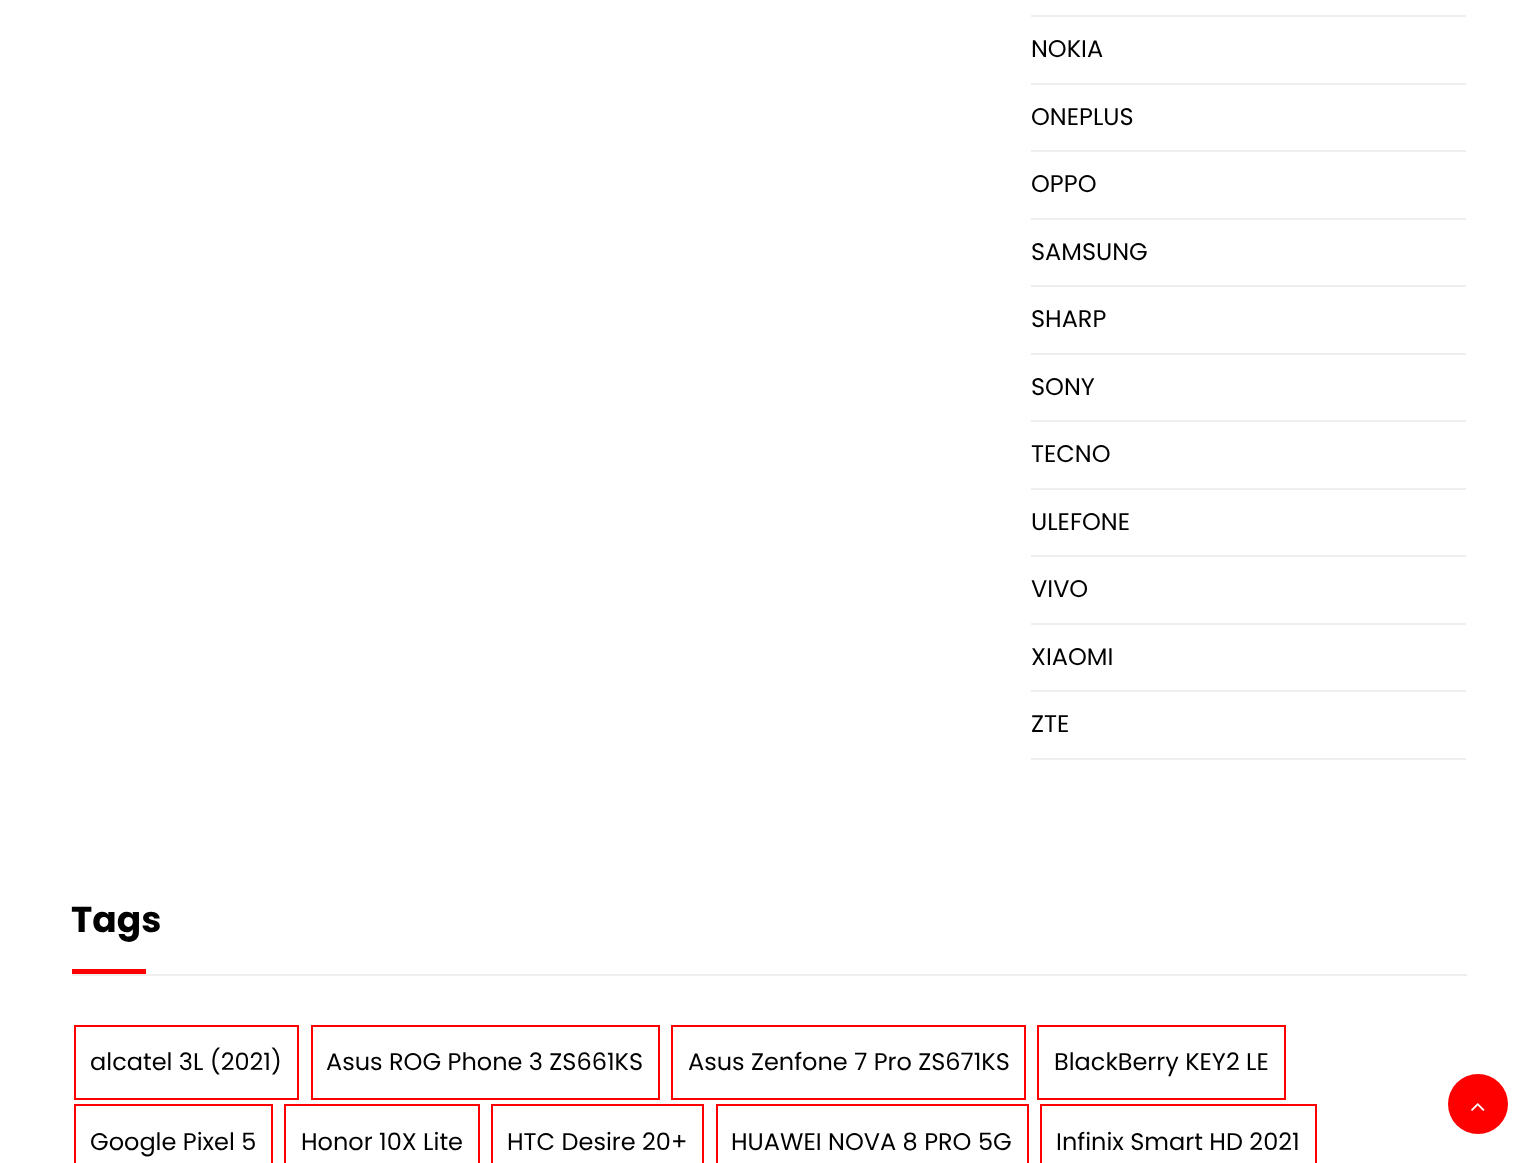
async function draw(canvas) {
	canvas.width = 1537;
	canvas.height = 1163;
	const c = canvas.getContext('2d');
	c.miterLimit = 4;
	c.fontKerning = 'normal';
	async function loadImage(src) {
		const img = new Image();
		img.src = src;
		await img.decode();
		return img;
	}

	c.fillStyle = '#fff';
	c.fillRect(0, 0, 1537, 1163);
	c.fillStyle = '#eee';
	c.fillRect(1031, 15, 435, 2);
	c.fillRect(1031, 83, 435, 2);
	c.font = '24px Poppins';
	c.fillStyle = '#000';
	c.fillText('NOKIA', 1031, 57);
	c.fillStyle = '#eee';
	c.fillRect(1031, 150, 435, 2);
	c.fillStyle = '#000';
	c.fillText('ONEPLUS', 1031, 125);
	c.fillStyle = '#eee';
	c.fillRect(1031, 218, 435, 2);
	c.fillStyle = '#000';
	c.fillText('OPPO', 1031, 192);
	c.fillStyle = '#eee';
	c.fillRect(1031, 285, 435, 2);
	c.fillStyle = '#000';
	c.fillText('SAMSUNG', 1031, 260);
	c.fillStyle = '#eee';
	c.fillRect(1031, 353, 435, 2);
	c.fillStyle = '#000';
	c.fillText('SHARP', 1031, 327);
	c.fillStyle = '#eee';
	c.fillRect(1031, 420, 435, 2);
	c.fillStyle = '#000';
	c.fillText('SONY', 1031, 395);
	c.fillStyle = '#eee';
	c.fillRect(1031, 488, 435, 2);
	c.fillStyle = '#000';
	c.fillText('TECNO', 1031, 462);
	c.fillStyle = '#eee';
	c.fillRect(1031, 555, 435, 2);
	c.fillStyle = '#000';
	c.fillText('ULEFONE', 1031, 530);
	c.fillStyle = '#eee';
	c.fillRect(1031, 623, 435, 2);
	c.fillStyle = '#000';
	c.fillText('VIVO', 1031, 597);
	c.fillStyle = '#eee';
	c.fillRect(1031, 690, 435, 2);
	c.fillStyle = '#000';
	c.fillText('XIAOMI', 1031, 665);
	c.fillStyle = '#eee';
	c.fillRect(1031, 758, 435, 2);
	c.fillStyle = '#000';
	c.fillText('ZTE', 1031, 732);
	c.fillStyle = '#eee';
	c.fillRect(72, 974, 1395, 2);
	c.font = 'bold 36px Poppins';
	c.fillStyle = '#000';
	c.fillText('Tags', 71, 932);
	c.fillStyle = '#f00';
	c.fillRect(72, 969, 74, 5);
	c.strokeStyle = '#f00';
	c.lineWidth = 2;
	c.strokeRect(75, 1026, 223, 73);
	c.font = '24px Poppins';
	c.fillStyle = '#000';
	c.fillText('alcatel 3L (2021)', 90, 1070);
	c.strokeRect(312, 1026, 347, 73);
	c.fillText('Asus ROG Phone 3 ZS661KS', 326, 1070);
	c.strokeRect(672, 1026, 353, 73);
	c.fillText('Asus Zenfone 7 Pro ZS671KS', 688, 1070);
	c.strokeRect(1038, 1026, 247, 73);
	c.fillText('BlackBerry KEY2 LE', 1054, 1070);
	c.strokeRect(75, 1105, 197, 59);
	c.fillText('Google Pixel 5', 90, 1150);
	c.strokeRect(285, 1105, 194, 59);
	c.fillText('Honor 10X Lite', 301, 1150);
	c.strokeRect(492, 1105, 211, 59);
	c.fillText('HTC Desire 20+', 507, 1150);
	c.strokeRect(717, 1105, 311, 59);
	c.fillText('HUAWEI NOVA 8 PRO 5G', 731, 1150);
	c.strokeRect(1041, 1105, 275, 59);
	c.fillText('Infinix Smart HD 2021', 1056, 1150);
	c.fillStyle = '#f00';
	c.beginPath();
	c.arc(1478, 1104, 30, 0, 2 * Math.PI);
	c.fill();
	c.drawImage(await loadImage('img1.png'), 1471, 1103, 14, 8);
}

draw(document.querySelector('canvas'));
